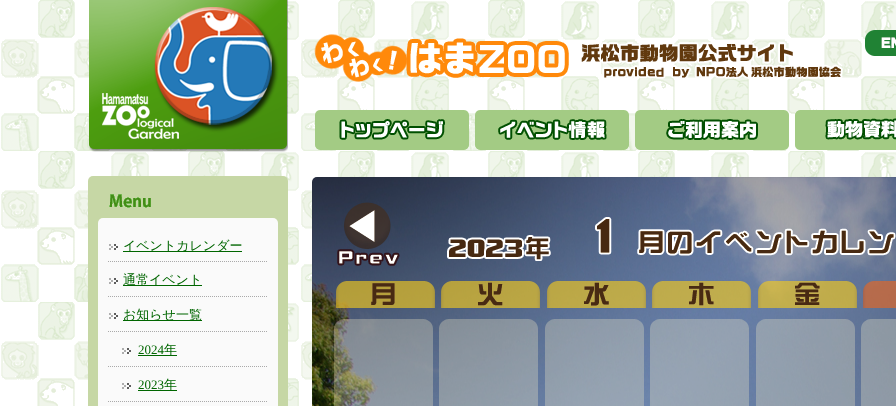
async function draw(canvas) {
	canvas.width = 896;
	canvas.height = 406;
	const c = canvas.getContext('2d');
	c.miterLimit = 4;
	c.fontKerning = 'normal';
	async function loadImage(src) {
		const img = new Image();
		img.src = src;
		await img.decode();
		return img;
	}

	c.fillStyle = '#fff';
	c.fillRect(0, 0, 896, 406);
	c.drawImage(await loadImage('img1.png'), 1, 0, 895, 406);
	c.drawImage(await loadImage('img2.png'), 89, 0, 199, 152);
	c.drawImage(await loadImage('img3.png'), 314, 34, 529, 48);
	c.drawImage(await loadImage('img4.png'), 865, 30, 31, 26);
	c.drawImage(await loadImage('img5.png'), 315, 110, 154, 40);
	c.drawImage(await loadImage('img6.png'), 475, 110, 154, 40);
	c.drawImage(await loadImage('img7.png'), 635, 110, 154, 40);
	c.drawImage(await loadImage('img8.png'), 795, 110, 101, 40);
	c.fillStyle = '#c6d7a5';
	c.beginPath();
	c.roundRect(88, 176, 200, 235, 5);
	c.fill();
	c.drawImage(await loadImage('img9.png'), 109, 194, 42, 14);
	c.fillStyle = '#fafafa';
	c.beginPath();
	c.roundRect(98, 218, 180, 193, 5);
	c.fill();
	c.drawImage(await loadImage('img10.png'), 109, 244, 9, 6);
	c.beginPath();
	c.moveTo(108, 261.5);
	c.lineTo(268, 261.5);
	c.strokeStyle = '#aaa';
	c.setLineDash([1, 1]);
	c.stroke();
	c.fillStyle = '#060';
	c.fillRect(123, 251, 119, 1);
	c.font = '500 13px WenQuanYi Zen Hei';
	c.fillText('イベントカレンダー', 123, 250);
	c.drawImage(await loadImage('img10.png'), 109, 278, 9, 6);
	c.beginPath();
	c.moveTo(108, 296.5);
	c.lineTo(268, 296.5);
	c.stroke();
	c.fillRect(123, 285, 79, 1);
	c.fillText('通常イベント', 123, 284);
	c.drawImage(await loadImage('img10.png'), 109, 313, 9, 6);
	c.beginPath();
	c.moveTo(108, 331.5);
	c.lineTo(268, 331.5);
	c.stroke();
	c.fillRect(123, 320, 79, 1);
	c.fillText('お知らせ一覧', 123, 319);
	c.drawImage(await loadImage('img10.png'), 122, 348, 9, 6);
	c.beginPath();
	c.moveTo(108, 366.5);
	c.lineTo(268, 366.5);
	c.stroke();
	c.font = '13px Liberation Serif';
	c.fillText('2024', 138, 354);
	c.fillRect(138, 355, 39, 1);
	c.font = '500 13px WenQuanYi Zen Hei';
	c.fillText('年', 164, 354);
	c.drawImage(await loadImage('img10.png'), 122, 383, 9, 6);
	c.beginPath();
	c.moveTo(108, 401.5);
	c.lineTo(268, 401.5);
	c.stroke();
	c.font = '13px Liberation Serif';
	c.fillText('2023', 138, 389);
	c.fillRect(138, 390, 39, 1);
	c.font = '500 13px WenQuanYi Zen Hei';
	c.fillText('年', 164, 389);
	c.drawImage(await loadImage('img11.png'), 312, 177, 584, 229);
	c.drawImage(await loadImage('img12.png'), 337, 202, 63, 64);
	c.drawImage(await loadImage('img13.png'), 447, 235, 104, 26);
	c.drawImage(await loadImage('img14.png'), 595, 217, 17, 38);
	c.drawImage(await loadImage('img15.png'), 637, 228, 259, 28);
	c.drawImage(await loadImage('img16.png'), 336, 281, 99, 27);
	c.drawImage(await loadImage('img17.png'), 441, 281, 99, 27);
	c.drawImage(await loadImage('img18.png'), 547, 281, 99, 27);
	c.drawImage(await loadImage('img19.png'), 652, 281, 99, 27);
	c.drawImage(await loadImage('img20.png'), 758, 281, 99, 27);
	c.drawImage(await loadImage('img21.png'), 863, 281, 33, 27);
	c.drawImage(await loadImage('img22.png'), 334, 319, 99, 87);
	c.drawImage(await loadImage('img23.png'), 439, 319, 99, 87);
	c.drawImage(await loadImage('img24.png'), 545, 319, 99, 87);
	c.drawImage(await loadImage('img25.png'), 650, 319, 99, 87);
	c.drawImage(await loadImage('img26.png'), 756, 319, 99, 87);
	c.drawImage(await loadImage('img27.png'), 861, 319, 35, 87);
}

draw(document.querySelector('canvas'));
